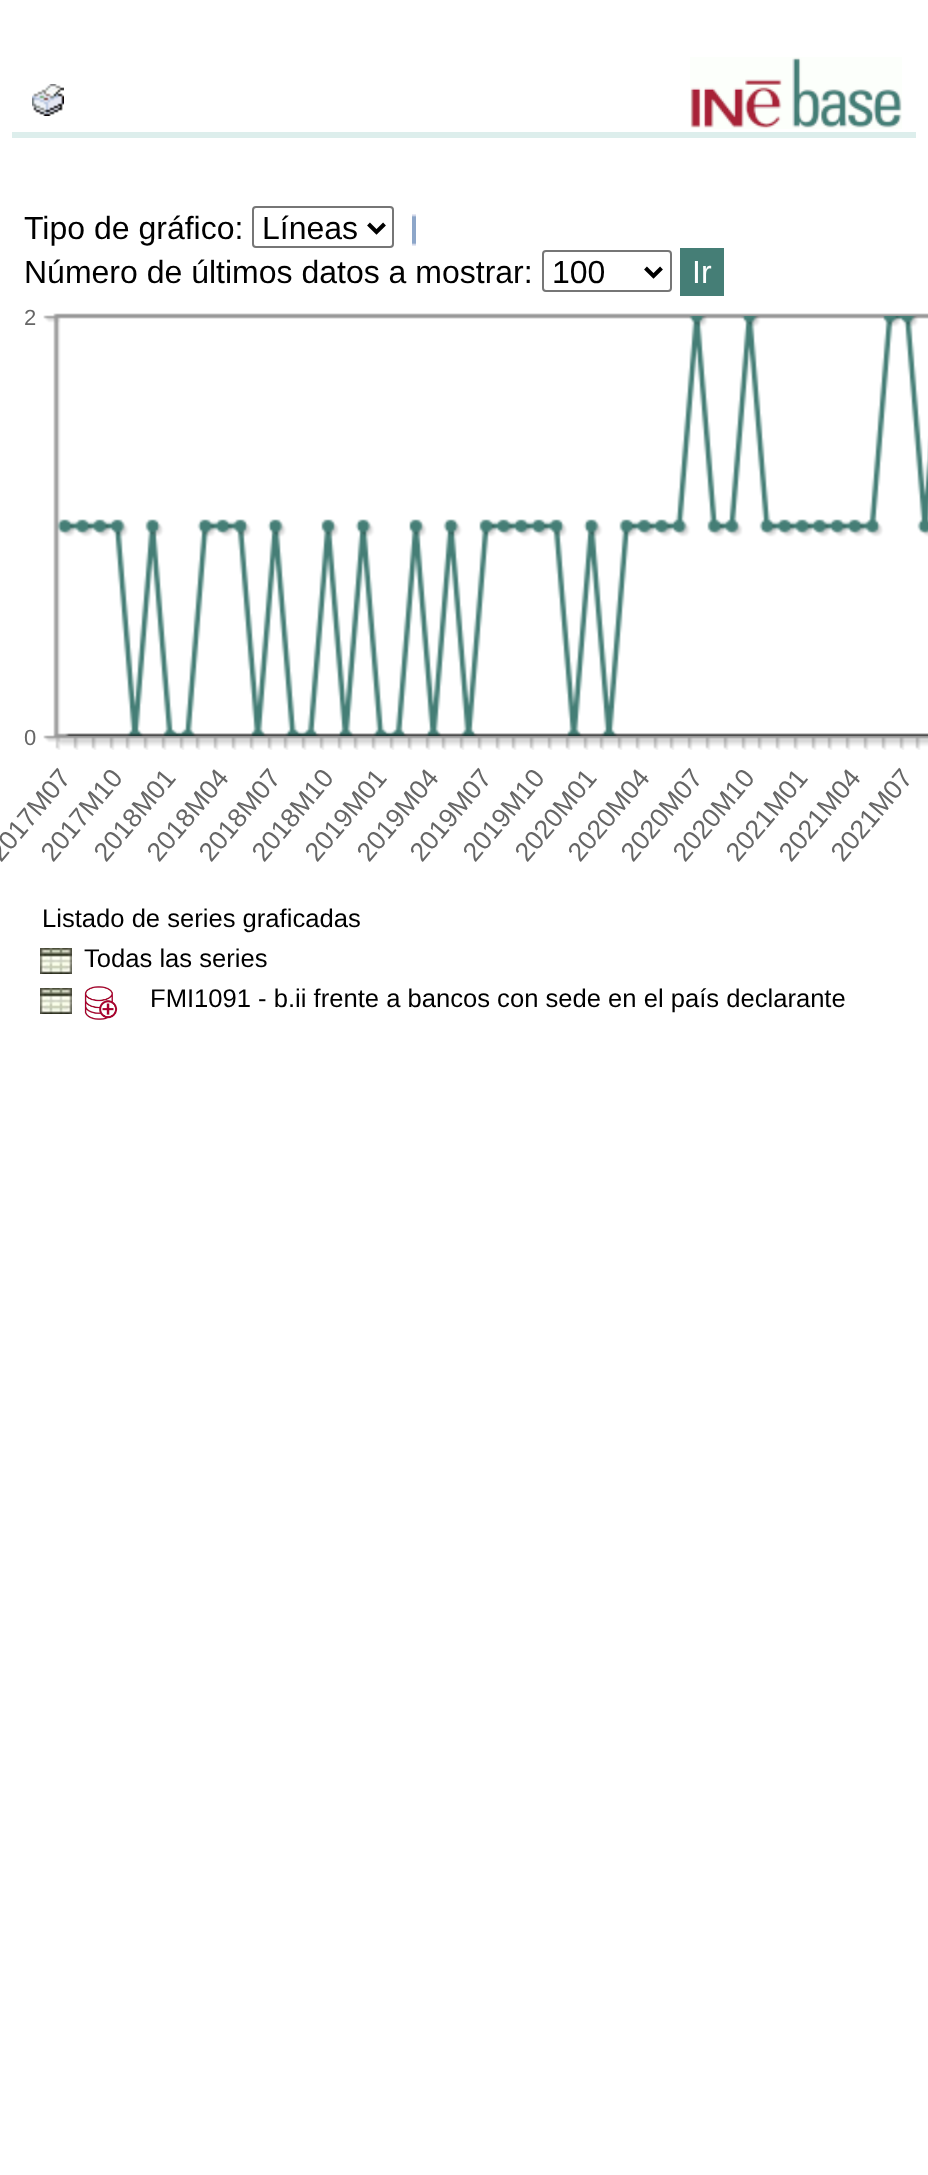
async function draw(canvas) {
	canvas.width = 928;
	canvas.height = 2175;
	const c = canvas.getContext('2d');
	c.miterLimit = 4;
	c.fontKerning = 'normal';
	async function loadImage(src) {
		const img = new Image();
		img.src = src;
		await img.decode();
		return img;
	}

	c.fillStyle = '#fff';
	c.fillRect(0, 0, 928, 2175);
	c.fillStyle = '#ddeeec';
	c.fillRect(12, 132, 904, 6);
	c.drawImage(await loadImage('img1.png'), 32, 84, 32, 32);
	c.drawImage(await loadImage('img2.png'), 690, 57, 212, 72);
	c.font = '32px Liberation Sans';
	c.fillStyle = '#000';
	c.fillText('Tipo de gráfico:', 24, 239);
	c.beginPath();
	c.roundRect(253, 207, 140, 40, 3);
	c.strokeStyle = '#767676';
	c.lineWidth = 2;
	c.stroke();
	c.beginPath();
	c.moveTo(368.5, 224);
	c.lineTo(376.5, 232);
	c.lineTo(384.5, 224);
	c.strokeStyle = '#000';
	c.lineWidth = 4;
	c.stroke();
	c.fillText('Líneas', 262, 239);
	c.drawImage(await loadImage('img3.png'), 412, 214, 4, 32);
	c.fillText('Número de últimos datos a mostrar:', 24, 283);
	c.beginPath();
	c.roundRect(543, 251, 128, 40, 3);
	c.strokeStyle = '#767676';
	c.lineWidth = 2;
	c.stroke();
	c.beginPath();
	c.moveTo(645.5, 268);
	c.lineTo(653.5, 276);
	c.lineTo(661.5, 268);
	c.strokeStyle = '#000';
	c.lineWidth = 4;
	c.stroke();
	c.fillText('100', 552, 283);
	c.fillStyle = '#457e76';
	c.fillRect(680, 248, 44, 48);
	c.fillStyle = '#fff';
	c.fillText('Ir', 692, 283);
	c.font = '22px Liberation Sans';
	c.fillStyle = '#666';
	c.fillText('2', 24, 325);
	c.fillText('0', 24, 745);
	c.drawImage(await loadImage('img4.png'), 43, 313, 885, 437);
	c.drawImage(await loadImage('img5.png'), 57, 316, 871, 420);
	c.drawImage(await loadImage('img6.png'), 65, 733, 863, 3);
	c.font = '26.5px Liberation Sans';
	c.save();
	c.translate(1, 863);
	c.rotate(-50 * Math.PI / 180);
	c.fillText('2017M07', 0, 0);
	c.restore();
	c.save();
	c.translate(53, 863);
	c.rotate(-50 * Math.PI / 180);
	c.fillText('2017M10', 0, 0);
	c.restore();
	c.save();
	c.translate(106, 863);
	c.rotate(-50 * Math.PI / 180);
	c.fillText('2018M01', 0, 0);
	c.restore();
	c.save();
	c.translate(159, 863);
	c.rotate(-50 * Math.PI / 180);
	c.fillText('2018M04', 0, 0);
	c.restore();
	c.save();
	c.translate(211, 863);
	c.rotate(-50 * Math.PI / 180);
	c.fillText('2018M07', 0, 0);
	c.restore();
	c.save();
	c.translate(264, 863);
	c.rotate(-50 * Math.PI / 180);
	c.fillText('2018M10', 0, 0);
	c.restore();
	c.save();
	c.translate(317, 863);
	c.rotate(-50 * Math.PI / 180);
	c.fillText('2019M01', 0, 0);
	c.restore();
	c.save();
	c.translate(369, 863);
	c.rotate(-50 * Math.PI / 180);
	c.fillText('2019M04', 0, 0);
	c.restore();
	c.save();
	c.translate(422, 863);
	c.rotate(-50 * Math.PI / 180);
	c.fillText('2019M07', 0, 0);
	c.restore();
	c.save();
	c.translate(475, 863);
	c.rotate(-50 * Math.PI / 180);
	c.fillText('2019M10', 0, 0);
	c.restore();
	c.save();
	c.translate(527, 863);
	c.rotate(-50 * Math.PI / 180);
	c.fillText('2020M01', 0, 0);
	c.restore();
	c.save();
	c.translate(580, 863);
	c.rotate(-50 * Math.PI / 180);
	c.fillText('2020M04', 0, 0);
	c.restore();
	c.save();
	c.translate(633, 863);
	c.rotate(-50 * Math.PI / 180);
	c.fillText('2020M07', 0, 0);
	c.restore();
	c.save();
	c.translate(685, 863);
	c.rotate(-50 * Math.PI / 180);
	c.fillText('2020M10', 0, 0);
	c.restore();
	c.save();
	c.translate(738, 863);
	c.rotate(-50 * Math.PI / 180);
	c.fillText('2021M01', 0, 0);
	c.restore();
	c.save();
	c.translate(791, 863);
	c.rotate(-50 * Math.PI / 180);
	c.fillText('2021M04', 0, 0);
	c.restore();
	c.save();
	c.translate(843, 863);
	c.rotate(-50 * Math.PI / 180);
	c.fillText('2021M07', 0, 0);
	c.restore();
	c.font = '25.6px Liberation Sans';
	c.fillStyle = '#000';
	c.fillText('Listado de series graficadas', 42, 927);
	c.drawImage(await loadImage('img7.png'), 40, 948, 32, 26);
	c.fillText('Todas las series', 84, 967);
	c.drawImage(await loadImage('img7.png'), 40, 988, 32, 26);
	c.drawImage(await loadImage('img8.png'), 84, 986, 34, 34);
	c.fillText('FMI1091 - b.ii frente a bancos con sede en el país declarante', 150, 1007);
}

draw(document.querySelector('canvas'));
